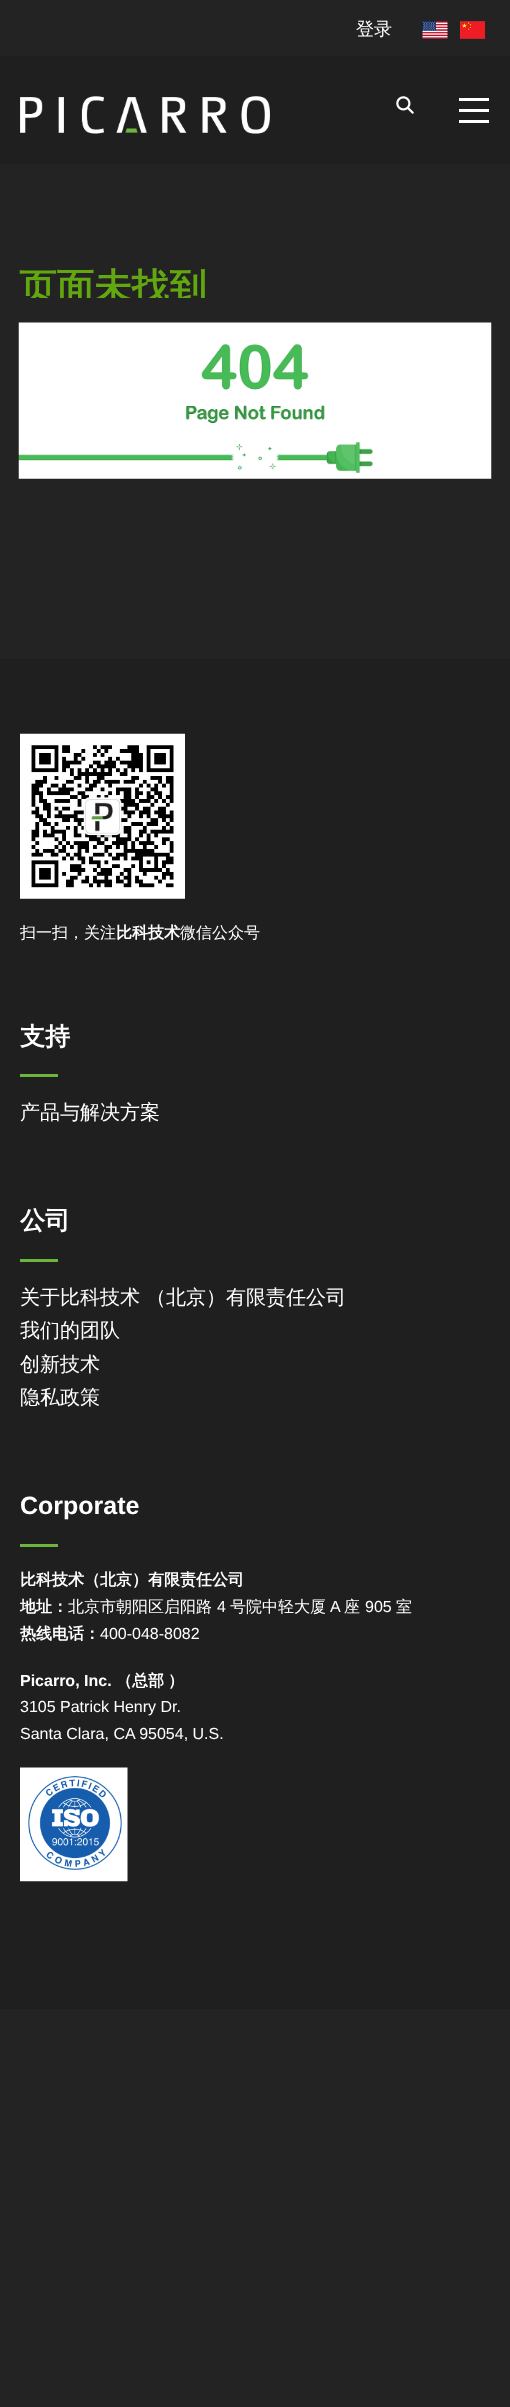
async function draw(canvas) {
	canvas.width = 510;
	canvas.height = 2407;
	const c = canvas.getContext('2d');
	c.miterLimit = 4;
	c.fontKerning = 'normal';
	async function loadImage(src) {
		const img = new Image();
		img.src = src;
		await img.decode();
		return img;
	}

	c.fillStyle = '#232323';
	c.fillRect(0, 0, 510, 2407);
	c.font = '500 18px WenQuanYi Zen Hei';
	c.fillStyle = '#fff';
	c.fillText('登录', 356, 35);
	c.drawImage(await loadImage('img1.png'), 422, 21, 26, 18);
	c.drawImage(await loadImage('img2.png'), 460, 21, 25, 18);
	c.fillStyle = '#1f1f1f';
	c.fillRect(0, 56, 510, 108);
	c.drawImage(await loadImage('img3.png'), 20, 96, 250, 38);
	c.drawImage(await loadImage('img4.png'), 396, 96, 18, 18);
	for (const [x, y, w, h, color] of [
		[459, 98, 30, 3, '#fff'],
		[459, 109, 30, 3, '#fff'],
		[459, 120, 30, 3, '#fff'],
	]) {
		c.fillStyle = color;
		c.fillRect(x, y, w, h);
	}
	c.save();
	c.beginPath();
	c.rect(0, 164, 510, 134);
	c.clip();
	c.font = 'bold 37.5px WenQuanYi Zen Hei';
	c.fillStyle = '#62a70f';
	c.fillText('页面未找到', 19, 300);
	c.restore();
	c.drawImage(await loadImage('img5.png'), 18, 322, 474, 157);
	c.fillStyle = '#1f1f1f';
	c.fillRect(0, 659, 510, 1350);
	c.drawImage(await loadImage('img6.png'), 20, 733, 165, 166);
	c.font = '500 16px WenQuanYi Zen Hei';
	c.fillStyle = '#fff';
	c.fillText('扫一扫，关注', 20, 938);
	c.font = 'bold 16px WenQuanYi Zen Hei';
	c.fillText('比科技术', 116, 938);
	c.font = '500 16px WenQuanYi Zen Hei';
	c.fillText('微信公众号', 180, 938);
	c.font = 'bold 25px WenQuanYi Zen Hei';
	c.fillText('支持', 20, 1045);
	c.fillStyle = '#6eb43f';
	c.fillRect(20, 1074, 38, 3);
	c.font = '500 20px WenQuanYi Zen Hei';
	c.fillStyle = '#fff';
	c.fillText('产品与解决方案', 20, 1119);
	c.font = 'bold 25px WenQuanYi Zen Hei';
	c.fillText('公司', 20, 1229);
	c.fillStyle = '#6eb43f';
	c.fillRect(20, 1259, 38, 3);
	c.font = '500 20px WenQuanYi Zen Hei';
	c.fillStyle = '#fff';
	for (const [text, x, y] of [
		['关于比科技术 （北京）有限责任公司', 20, 1304],
		['我们的团队', 20, 1337],
		['创新技术', 20, 1371],
		['隐私政策', 20, 1404],
	]) {
		c.fillText(text, x, y);
	}
	c.font = 'bold 25px Liberation Sans';
	c.fillText('Corporate', 20, 1514);
	c.fillStyle = '#6eb43f';
	c.fillRect(20, 1544, 38, 3);
	c.font = 'bold 16px WenQuanYi Zen Hei';
	c.fillStyle = '#fff';
	c.fillText('比科技术（北京）有限责任公司', 20, 1585);
	c.fillText('地址：', 20, 1612);
	c.font = '500 16px WenQuanYi Zen Hei';
	c.fillText('北京市朝阳区启阳路', 68, 1612);
	c.font = '16px Liberation Sans';
	c.fillText('4', 217, 1612);
	c.font = '500 16px WenQuanYi Zen Hei';
	c.fillText('号院中轻大厦', 230, 1612);
	c.font = '16px Liberation Sans';
	c.fillText('A', 330, 1612);
	c.font = '500 16px WenQuanYi Zen Hei';
	c.fillText('座', 344, 1612);
	c.font = '16px Liberation Sans';
	c.fillText('905', 365, 1612);
	c.font = '500 16px WenQuanYi Zen Hei';
	c.fillText('室', 396, 1612);
	c.font = 'bold 16px WenQuanYi Zen Hei';
	c.fillText('热线电话：', 20, 1639);
	c.font = '16px Liberation Sans';
	c.fillText('400-048-8082', 100, 1639);
	c.font = 'bold 16px Liberation Sans';
	c.fillText('Picarro, Inc.', 20, 1686);
	c.font = 'bold 16px WenQuanYi Zen Hei';
	c.fillText('（总部', 116, 1686);
	c.fillText('）', 168, 1686);
	c.font = '16px Liberation Sans';
	c.fillText('3105 Patrick Henry Dr.', 20, 1712);
	c.fillText('Santa Clara, CA 95054, U.S.', 20, 1739);
	c.drawImage(await loadImage('img7.png'), 20, 1767, 108, 115);
}

draw(document.querySelector('canvas'));
